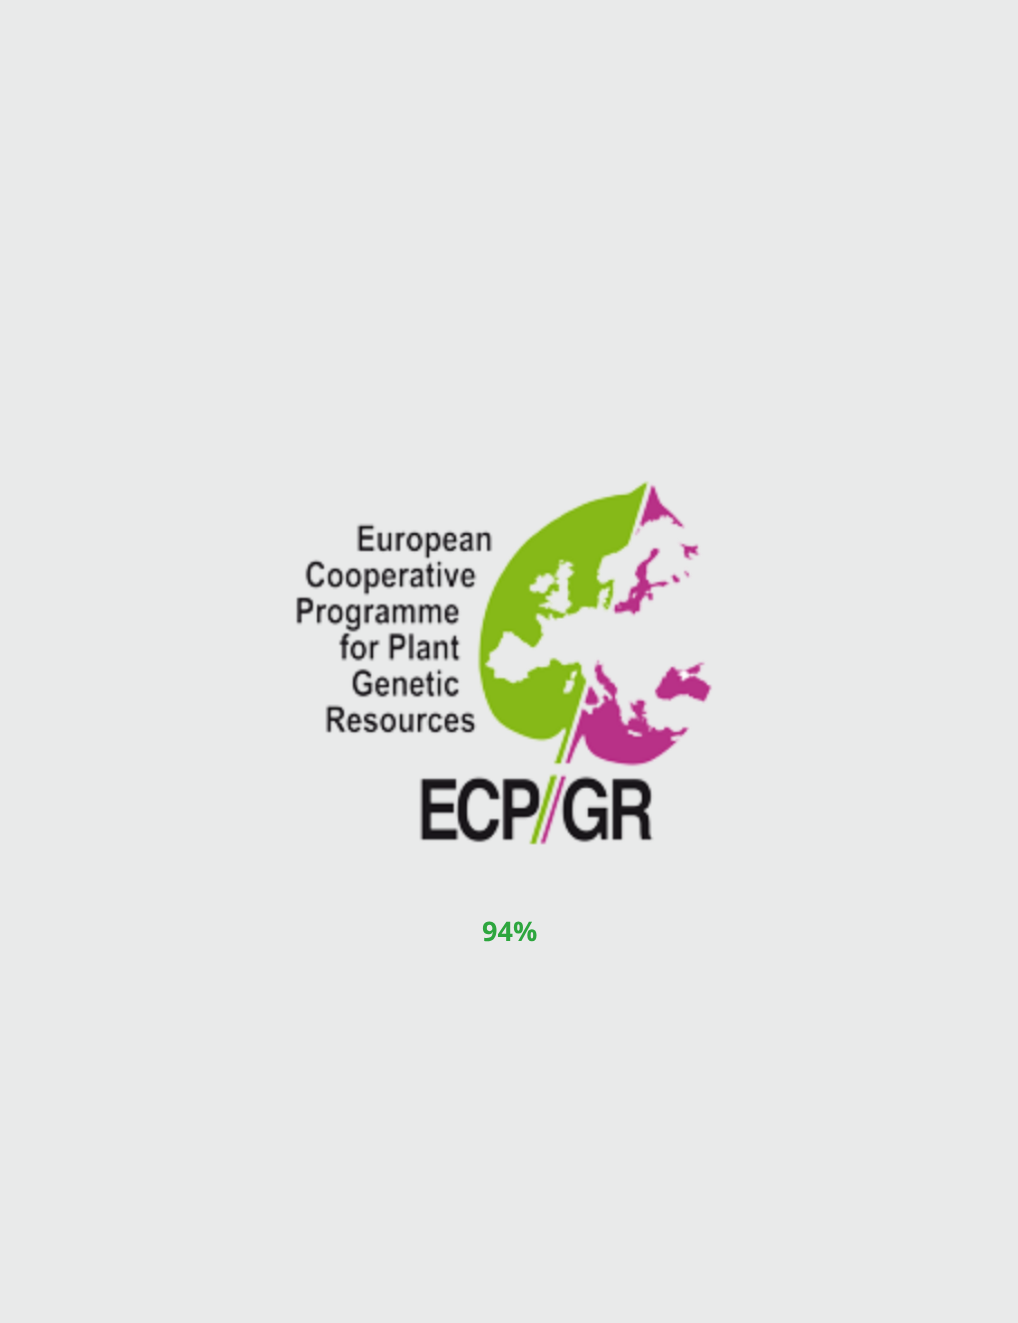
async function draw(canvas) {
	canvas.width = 1018;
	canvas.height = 1323;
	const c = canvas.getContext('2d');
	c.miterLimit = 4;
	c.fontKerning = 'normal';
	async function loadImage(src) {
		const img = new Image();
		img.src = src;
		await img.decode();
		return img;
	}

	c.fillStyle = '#e9eaea';
	c.fillRect(0, 0, 1018, 1323);
	c.drawImage(await loadImage('img1.png'), 295, 480, 418, 365);
	c.font = 'bold 27px Open Sans';
	c.fillStyle = '#2da63e';
	c.fillText('94%', 482, 941);
}

draw(document.querySelector('canvas'));
